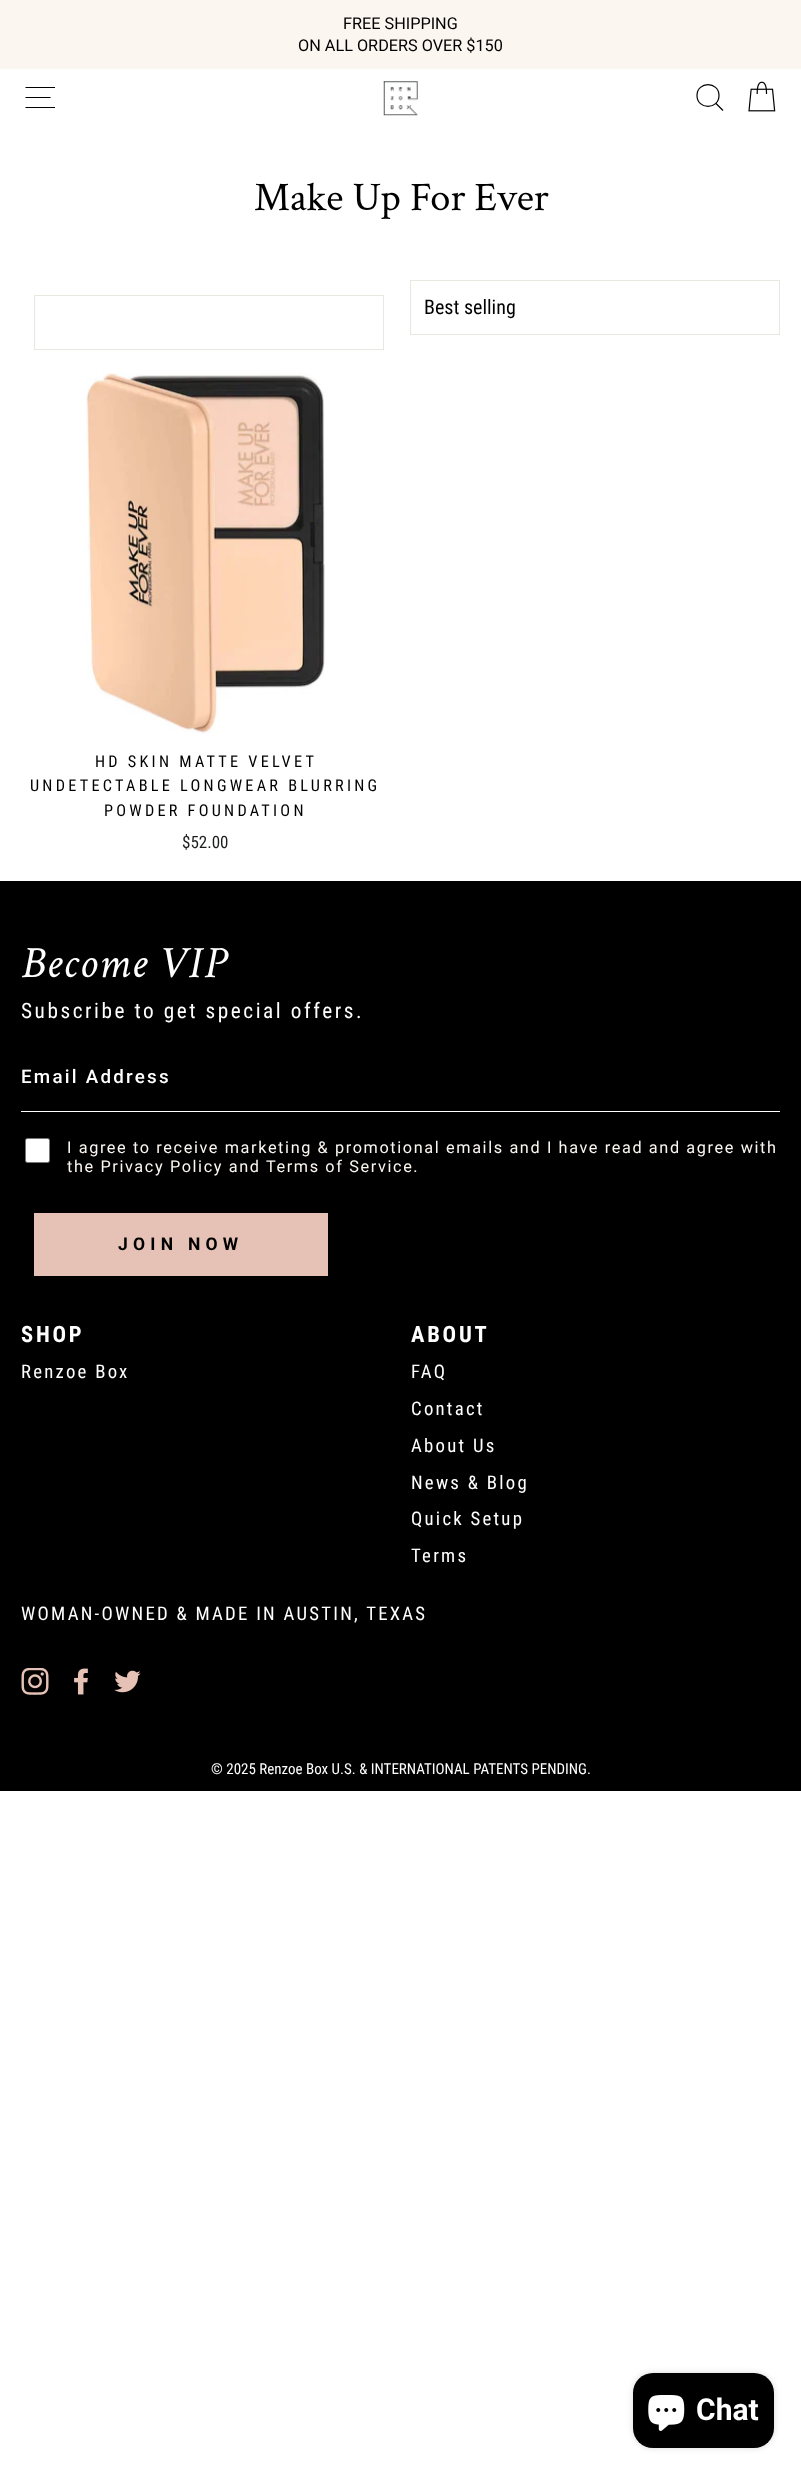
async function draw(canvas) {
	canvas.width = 801;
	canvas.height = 2473;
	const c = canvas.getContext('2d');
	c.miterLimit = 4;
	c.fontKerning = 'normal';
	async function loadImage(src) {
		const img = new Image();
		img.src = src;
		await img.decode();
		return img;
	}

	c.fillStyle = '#fff';
	c.fillRect(0, 0, 801, 2473);
	c.fillStyle = '#fbf6f0';
	c.fillRect(0, 0, 801, 69);
	c.font = '16.25px Roboto';
	c.fillStyle = '#000';
	c.fillText('FREE SHIPPING', 343, 29);
	c.fillText('ON ALL ORDERS OVER $150', 298, 51);
	c.fillStyle = '#00000033';
	c.filter = 'blur(0.5px)';
	c.beginPath();
	c.rect(0, 69, 801, 59);
	c.fill();
	c.filter = 'none';
	c.fillStyle = '#fff';
	c.fillRect(0, 69, 801, 59);
	c.beginPath();
	c.moveTo(25.5, 87.5);
	c.lineTo(55, 87.5);
	c.moveTo(25.5, 97.5);
	c.lineTo(50.5, 97.5);
	c.moveTo(25.5, 107.5);
	c.lineTo(55, 107.5);
	c.strokeStyle = '#000';
	c.lineWidth = 1.2;
	c.stroke();
	c.drawImage(await loadImage('img1.png'), 383, 81, 35, 35);
	c.beginPath();
	c.moveTo(719, 95.5);
	c.bezierCurveTo(719, 110, 697, 110, 697, 95.5);
	c.bezierCurveTo(697, 81, 719, 81, 719, 95.5);
	c.closePath();
	c.moveTo(723, 110.5);
	c.lineTo(716, 103.5);
	c.stroke();
	c.drawImage(await loadImage('img2.png'), 748, 81, 28, 31);
	c.font = '40.5px Crimson Text';
	c.fillStyle = '#000';
	c.fillText('Make Up For Ever', 254, 210);
	c.strokeStyle = '#e8e8e1';
	c.lineWidth = 1;
	c.strokeRect(34.5, 295.5, 349, 54);
	c.strokeRect(410.5, 280.5, 369, 54);
	c.font = '20px Roboto Condensed';
	c.fillText('Best selling', 424, 314);
	c.drawImage(await loadImage('img3.png'), 85, 373, 240, 361);
	c.letterSpacing = '3.25px';
	c.font = '16.25px Roboto Condensed';
	for (const [text, x, y] of [
		['HD SKIN MATTE VELVET', 95, 767],
		['UNDETECTABLE LONGWEAR BLURRING', 30, 791],
		['POWDER FOUNDATION', 104, 816],
	]) {
		c.fillText(text, x, y);
	}
	c.letterSpacing = '0px';
	c.font = '17px Roboto Condensed';
	c.fillStyle = '#1c1d1d';
	c.fillText('$52.00', 182, 848);
	c.fillStyle = '#000';
	c.fillRect(0, 881, 801, 910);
	c.letterSpacing = '1px';
	c.font = 'italic 45px Crimson Text';
	c.fillStyle = '#fff';
	c.fillText('Become VIP', 21, 977);
	c.letterSpacing = '2.55px';
	c.font = '21.25px Roboto Condensed';
	c.fillText('Subscribe to get special offers.', 21, 1018);
	c.fillRect(21, 1111, 759, 1);
	c.letterSpacing = '2.25px';
	c.font = '500 18.75px Roboto';
	c.fillText('Email Address', 21, 1083);
	c.beginPath();
	c.roundRect(25.5, 1138.5, 24, 24, 2);
	c.fill();
	c.strokeStyle = '#767676';
	c.stroke();
	c.letterSpacing = '1.62px';
	c.font = '16.25px Roboto';
	c.fillStyle = '#fbf6f0';
	c.fillText('I agree to receive marketing & promotional emails and I have read and agree with', 67, 1153);
	c.fillText('the Privacy Policy and Terms of Service.', 67, 1172);
	c.fillStyle = '#e5c2b5';
	c.fillRect(34, 1213, 294, 63);
	c.letterSpacing = '5.25px';
	c.font = 'bold 17.5px Roboto';
	c.fillStyle = '#000';
	c.fillText('JOIN NOW', 118, 1250);
	c.letterSpacing = '2.75px';
	c.font = 'bold 22.5px Roboto Condensed';
	c.fillStyle = '#fff';
	c.fillText('SHOP', 21, 1342);
	c.letterSpacing = '2.25px';
	c.font = '18.75px Roboto Condensed';
	c.fillText('Renzoe Box', 21, 1378);
	c.letterSpacing = '2.75px';
	c.font = 'bold 22.5px Roboto Condensed';
	c.fillText('ABOUT', 411, 1342);
	c.letterSpacing = '2.25px';
	c.font = '18.75px Roboto Condensed';
	for (const [text, x, y] of [
		['FAQ', 411, 1378],
		['Contact', 411, 1415],
		['About Us', 411, 1452],
		['News & Blog', 411, 1489],
		['Quick Setup', 411, 1525],
		['Terms', 411, 1562],
		['WOMAN-OWNED & MADE IN AUSTIN, TEXAS', 21, 1620],
	]) {
		c.fillText(text, x, y);
	}
	c.drawImage(await loadImage('img4.png'), 21, 1668, 28, 27);
	c.drawImage(await loadImage('img5.png'), 74, 1668, 14, 27);
	c.drawImage(await loadImage('img6.png'), 114, 1670, 27, 23);
	c.letterSpacing = '0px';
	c.font = '15px Roboto Condensed';
	c.fillText('© 2025 Renzoe Box U.S. & INTERNATIONAL PATENTS PENDING.', 211, 1774);
	c.fillStyle = '#00000026';
	c.filter = 'blur(3px)';
	c.beginPath();
	c.roundRect(633, 2373, 141, 75, 20);
	c.fill();
	c.filter = 'none';
	c.fillStyle = '#000';
	c.beginPath();
	c.roundRect(633, 2373, 141, 75, 20);
	c.fill();
	c.drawImage(await loadImage('img7.png'), 648, 2395, 37, 36);
	c.font = 'bold 30px Roboto';
	c.fillStyle = '#fff';
	c.fillText('Chat', 696, 2420);
}

draw(document.querySelector('canvas'));
